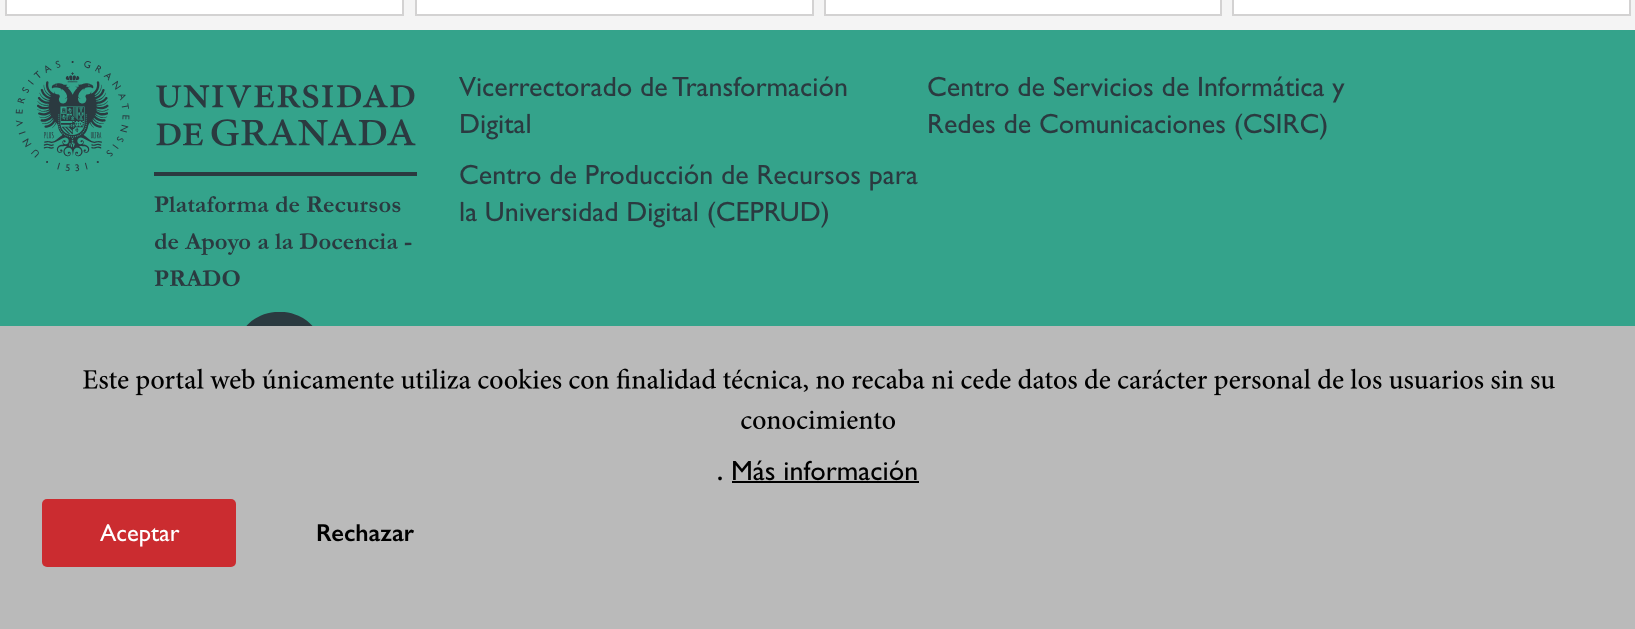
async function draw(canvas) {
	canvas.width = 1635;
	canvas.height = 629;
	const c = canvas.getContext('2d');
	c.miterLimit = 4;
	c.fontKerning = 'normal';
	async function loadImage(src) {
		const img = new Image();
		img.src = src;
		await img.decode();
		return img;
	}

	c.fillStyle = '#34a38b';
	c.fillRect(0, 0, 1635, 629);
	c.fillStyle = '#f4f4f4';
	c.fillRect(0, 0, 1635, 30);
	c.fillStyle = '#fff';
	c.beginPath();
	c.rect(6, -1, 397, 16);
	c.fill();
	c.strokeStyle = '#d3d2d2';
	c.lineWidth = 2;
	c.stroke();
	c.beginPath();
	c.rect(416, -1, 397, 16);
	c.fill();
	c.stroke();
	c.beginPath();
	c.rect(825, -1, 396, 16);
	c.fill();
	c.stroke();
	c.beginPath();
	c.rect(1233, -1, 397, 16);
	c.fill();
	c.stroke();
	c.font = '28px Gill Sans';
	c.fillStyle = '#2b3a40';
	for (const [text, x, y] of [
		['Vicerrectorado de Transformación', 459, 96],
		['Digital', 459, 133],
		['Centro de Servicios de Informática y', 927, 96],
		['Redes de Comunicaciones (CSIRC)', 927, 133],
		['Centro de Producción de Recursos para', 459, 184],
		['la Universidad Digital (CEPRUD)', 459, 221],
	]) {
		c.fillText(text, x, y);
	}
	c.drawImage(await loadImage('img1.png'), 15, 60, 401, 112);
	c.fillRect(154, 172, 263, 4);
	c.font = 'bold 24.5px Garamond';
	for (const [text, x, y] of [
		['Plataforma de Recursos', 154, 212],
		['de Apoyo a la Docencia -', 154, 249],
		['PRADO', 154, 286],
	]) {
		c.fillText(text, x, y);
	}
	c.drawImage(await loadImage('img2.png'), 246, 312, 67, 14);
	c.fillStyle = '#bababa';
	c.fillRect(0, 326, 1635, 303);
	c.drawImage(await loadImage('img3.png'), 83, 368, 1472, 28);
	c.drawImage(await loadImage('img4.png'), 741, 410, 154, 20);
	c.font = '600 24.5px Gill Sans';
	c.fillStyle = '#000';
	c.fillText('.', 717, 480);
	c.font = '28px Gill Sans';
	c.fillText('Más información', 731, 480);
	c.fillRect(732, 481, 187, 2);
	c.fillStyle = '#cb2c30';
	c.beginPath();
	c.roundRect(42, 499, 194, 68, 5);
	c.fill();
	c.font = '24.5px Gill Sans';
	c.fillStyle = '#fff';
	c.fillText('Aceptar', 100, 541);
	c.font = '600 24.5px Gill Sans';
	c.fillStyle = '#000';
	c.fillText('Rechazar', 316, 541);
}

draw(document.querySelector('canvas'));
